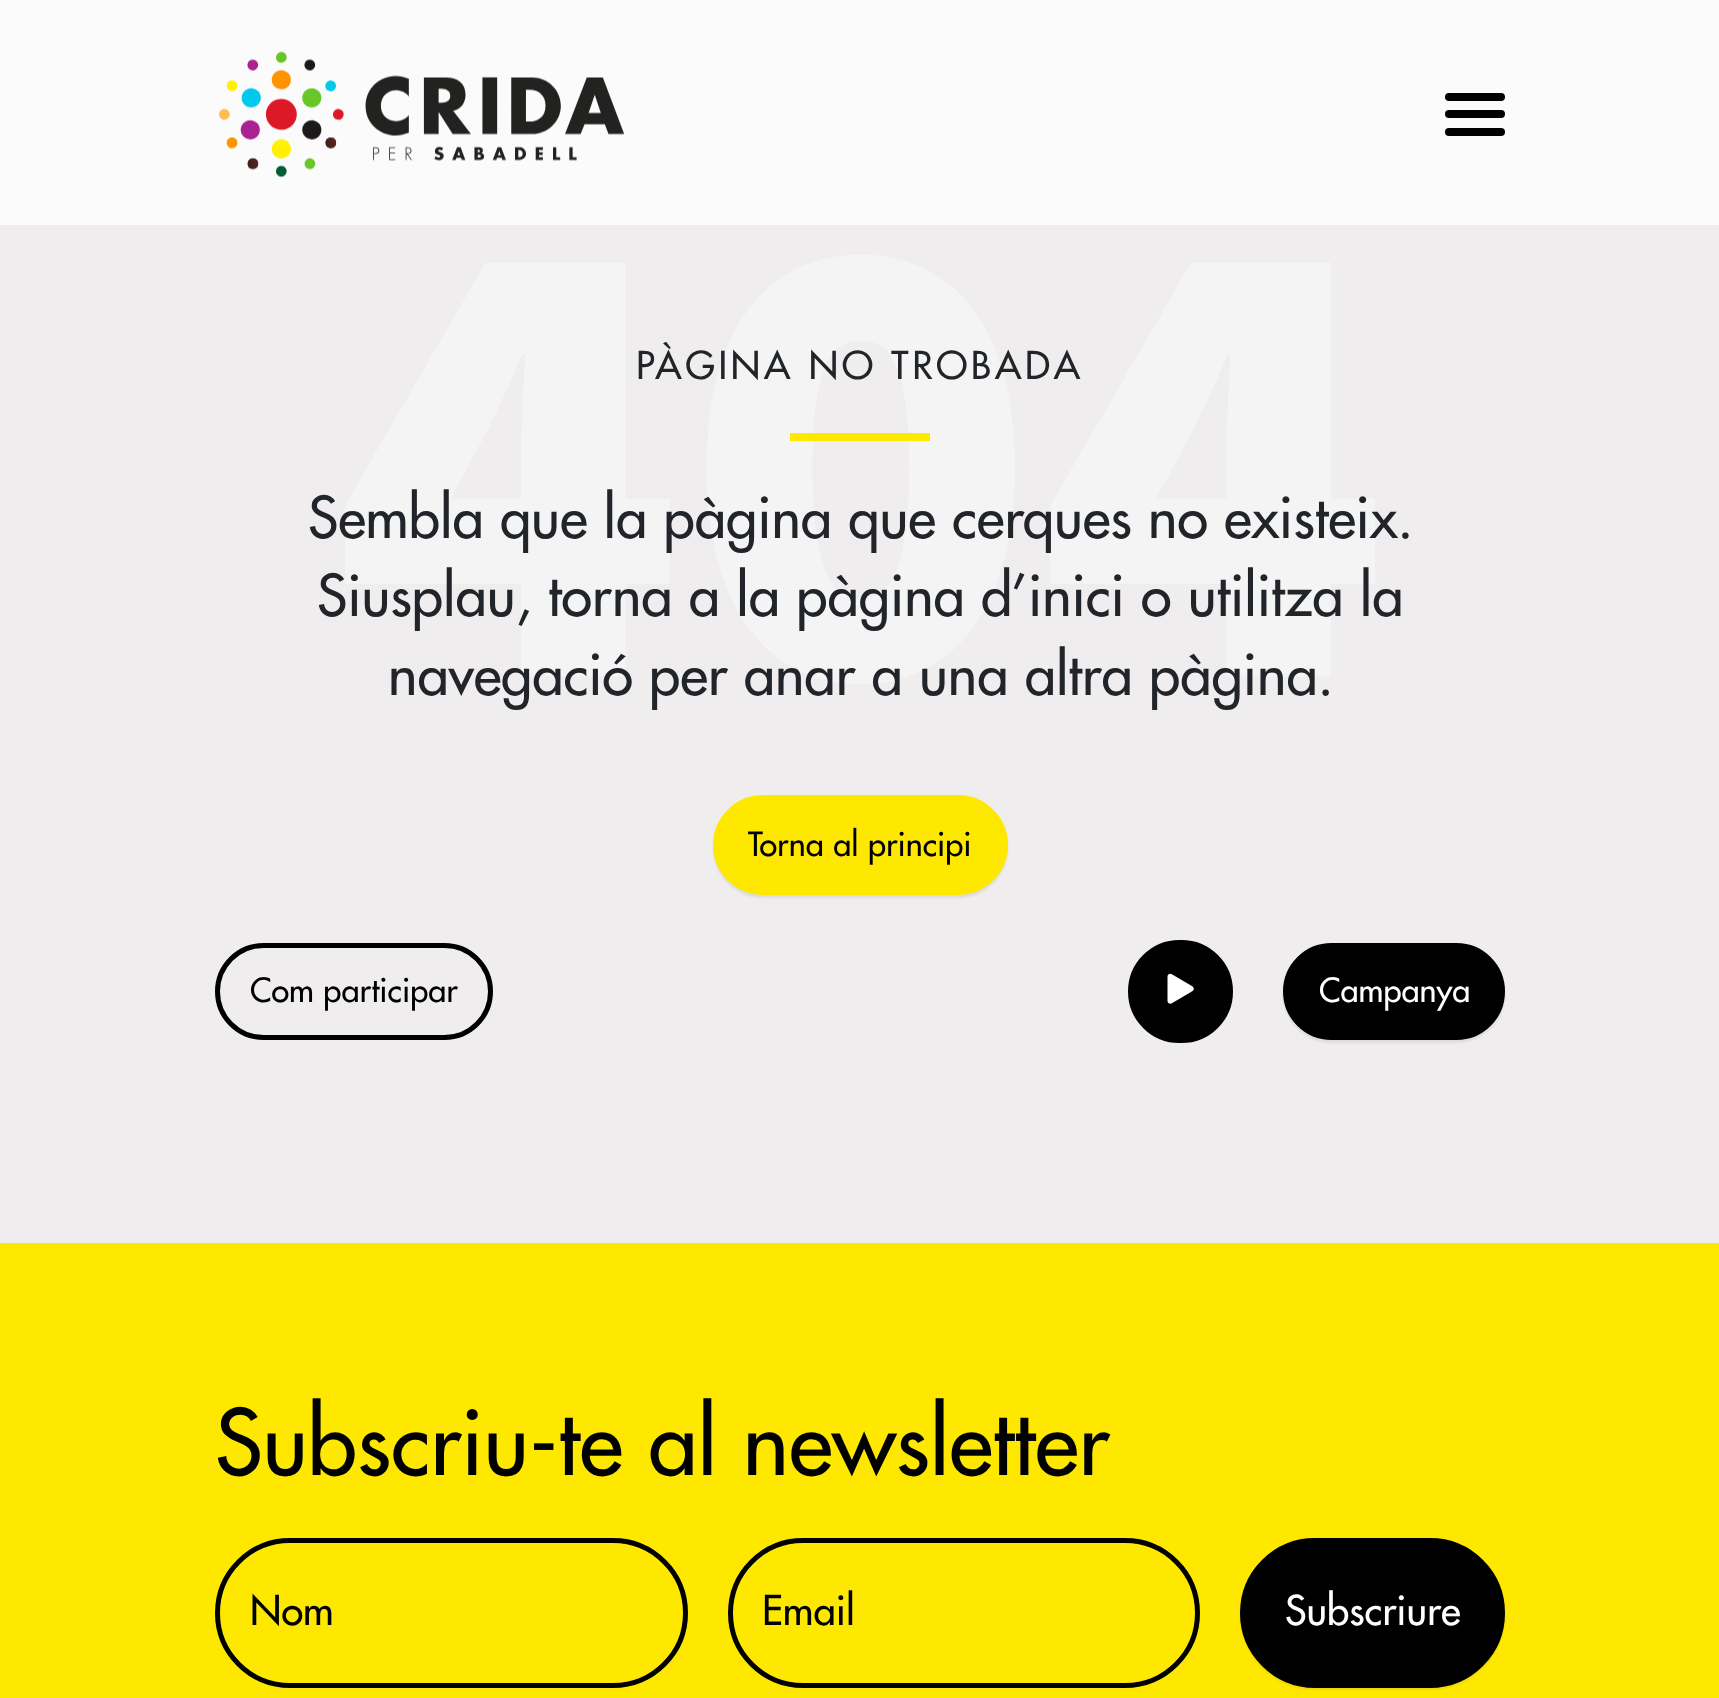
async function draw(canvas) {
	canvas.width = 1719;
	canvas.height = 1698;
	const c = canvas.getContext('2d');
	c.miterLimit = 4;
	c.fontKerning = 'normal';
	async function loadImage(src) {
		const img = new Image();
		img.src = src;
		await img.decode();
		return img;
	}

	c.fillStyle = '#efeded';
	c.fillRect(0, 0, 1719, 1698);
	c.fillStyle = '#fcfbfb';
	c.fillRect(0, 0, 1719, 225);
	c.drawImage(await loadImage('img1.png'), 219, 51, 405, 127);
	c.fillStyle = '#000';
	c.beginPath();
	c.roundRect(1445, 93, 60, 8, 4);
	c.fill();
	c.beginPath();
	c.roundRect(1445, 110, 60, 8, 4);
	c.fill();
	c.beginPath();
	c.roundRect(1445, 128, 60, 8, 4);
	c.fill();
	c.drawImage(await loadImage('img2.png'), 345, 255, 1030, 429);
	c.letterSpacing = '3.75px';
	c.font = '500 37.5px Futura';
	c.fillStyle = '#212529';
	c.fillText('PÀGINA NO TROBADA', 636, 379);
	c.fillStyle = '#ffe800';
	c.fillRect(790, 433, 140, 8);
	c.letterSpacing = '0px';
	c.font = '500 56.2px Futura';
	c.fillStyle = '#212529';
	for (const [text, x, y] of [
		['Sembla que la pàgina que cerques no existeix.', 308, 538],
		['Siusplau, torna a la pàgina d’inici o utilitza la', 317, 616],
		['navegació per anar a una altra pàgina.', 388, 695],
	]) {
		c.fillText(text, x, y);
	}
	c.fillStyle = '#00000012';
	c.filter = 'blur(1px)';
	c.beginPath();
	c.roundRect(713, 798, 295, 100, 50);
	c.fill();
	c.filter = 'none';
	c.fillStyle = '#ffe800';
	c.beginPath();
	c.roundRect(715.5, 797.5, 290, 95, 47.5);
	c.fill();
	c.strokeStyle = '#ffe800';
	c.lineWidth = 5;
	c.stroke();
	c.font = '500 32.5px Futura';
	c.fillStyle = '#000';
	c.fillText('Torna al principi', 748, 856);
	c.beginPath();
	c.roundRect(217.5, 945.5, 273, 92, 46);
	c.strokeStyle = '#000';
	c.stroke();
	c.fillText('Com participar', 250, 1002);
	c.beginPath();
	c.roundRect(1130.5, 942.5, 100, 98, 49);
	c.fill();
	c.stroke();
	c.drawImage(await loadImage('img3.png'), 1167, 973, 27, 31);
	c.fillStyle = '#00000012';
	c.filter = 'blur(1px)';
	c.beginPath();
	c.roundRect(1283, 945, 222, 98, 49);
	c.fill();
	c.filter = 'none';
	c.fillStyle = '#000';
	c.beginPath();
	c.roundRect(1285.5, 945.5, 217, 92, 46);
	c.fill();
	c.stroke();
	c.fillStyle = '#fff';
	c.fillText('Campanya', 1319, 1002);
	c.fillStyle = '#ffe800';
	c.fillRect(0, 1243, 1719, 455);
	c.font = '500 88.5px Futura';
	c.fillStyle = '#000';
	c.fillText('Subscriu-te al newsletter', 215, 1475);
	c.beginPath();
	c.roundRect(217.5, 1540.5, 468, 145, 72.5);
	c.stroke();
	c.font = '500 40px Futura';
	c.fillText('Nom', 250, 1625);
	c.beginPath();
	c.roundRect(730.5, 1540.5, 467, 145, 72.5);
	c.stroke();
	c.fillText('Email', 762, 1625);
	c.fillStyle = '#00000012';
	c.filter = 'blur(1px)';
	c.beginPath();
	c.roundRect(1240, 1540, 265, 150, 75);
	c.fill();
	c.filter = 'none';
	c.fillStyle = '#000';
	c.beginPath();
	c.roundRect(1242.5, 1540.5, 260, 145, 72.5);
	c.fill();
	c.stroke();
	c.fillStyle = '#fff';
	c.fillText('Subscriure', 1285, 1625);
}

draw(document.querySelector('canvas'));
